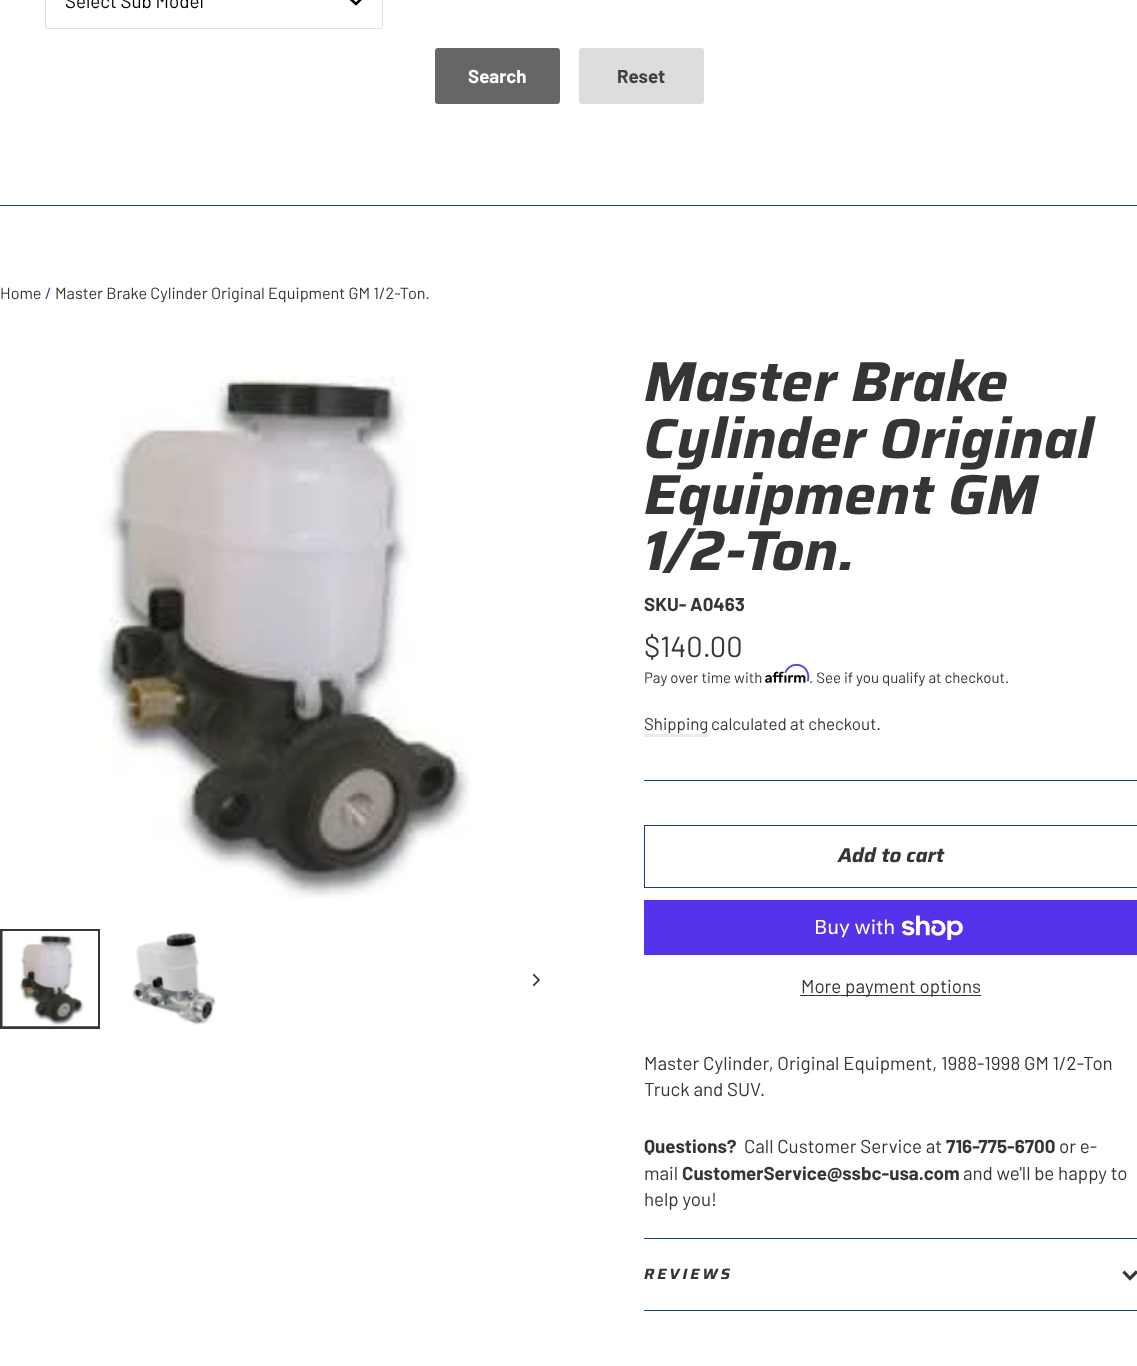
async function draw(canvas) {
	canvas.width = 1137;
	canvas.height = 1366;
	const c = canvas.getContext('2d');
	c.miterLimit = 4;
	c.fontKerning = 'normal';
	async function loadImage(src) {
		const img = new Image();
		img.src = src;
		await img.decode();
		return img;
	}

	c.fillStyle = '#fff';
	c.fillRect(0, 0, 1137, 1366);
	c.fillStyle = '#163d81';
	c.fillRect(0, 205, 1137, 1);
	c.beginPath();
	c.roundRect(45.5, -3.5, 337, 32, 2);
	c.strokeStyle = '#dfdfdf';
	c.stroke();
	c.font = '18.75px Barlow';
	c.fillStyle = '#000';
	c.fillText('Select Sub Model', 65, 8);
	c.beginPath();
	c.moveTo(350, -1.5);
	c.lineTo(356, 4);
	c.lineTo(361.5, -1.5);
	c.strokeStyle = '#000';
	c.lineWidth = 2.6;
	c.lineCap = 'round';
	c.lineJoin = 'round';
	c.stroke();
	c.fillStyle = '#666';
	c.beginPath();
	c.roundRect(435.5, 48.5, 124, 55, 2);
	c.fill();
	c.strokeStyle = '#666';
	c.lineWidth = 1;
	c.lineJoin = 'miter';
	c.stroke();
	c.font = 'bold 18.75px Barlow';
	c.fillStyle = '#fff';
	c.fillText('Search', 468, 83);
	c.fillStyle = '#ddd';
	c.beginPath();
	c.roundRect(579.5, 48.5, 124, 55, 2);
	c.fill();
	c.strokeStyle = '#ddd';
	c.stroke();
	c.fillStyle = '#3d4246';
	c.fillText('Reset', 617, 83);
	c.font = '16.25px Barlow';
	c.fillStyle = '#353535';
	c.fillText('Home', 0, 299);
	c.fillStyle = '#163d81';
	c.fillText('/', 45, 299);
	c.fillStyle = '#353535';
	c.fillText('Master Brake Cylinder Original Equipment GM 1/2-Ton.', 55, 299);
	c.drawImage(await loadImage('img1.png'), 98, 375, 373, 525);
	c.strokeStyle = '#353535';
	c.lineWidth = 3;
	c.strokeRect(1.5, 930.5, 97, 97);
	c.fillStyle = '#fff';
	c.fillRect(3, 931, 95, 95);
	c.drawImage(await loadImage('img2.png'), 2, 931, 96, 96);
	c.drawImage(await loadImage('img3.png'), 132, 932, 85, 93);
	c.drawImage(await loadImage('img4.png'), 533, 974, 7, 12);
	c.font = 'italic bold 56.25px Saira';
	c.fillStyle = '#353535';
	for (const [text, x, y] of [
		['Master Brake', 644, 401],
		['Cylinder Original', 644, 458],
		['Equipment GM', 644, 514],
		['1/2-Ton.', 644, 570],
	]) {
		c.fillText(text, x, y);
	}
	c.font = 'bold 18.75px Barlow';
	c.fillText('SKU- A0463', 644, 611);
	c.font = '29px Barlow';
	c.fillText('$140.00', 644, 657);
	c.font = '15px Barlow';
	c.fillText('Pay over time with', 644, 683);
	c.drawImage(await loadImage('img6.png'), 765, 671, 41, 12);
	c.drawImage(await loadImage('img5.png'), 784, 663, 26, 19);
	c.fillText('. See if you qualify at checkout.', 809, 683);
	c.font = '16.9px Barlow';
	c.fillText('Shipping', 644, 730);
	c.fillStyle = '#ebebeb';
	c.fillRect(644, 734, 64, 3);
	c.fillStyle = '#353535';
	c.fillText('calculated at checkout.', 711, 730);
	c.fillStyle = '#163d81';
	c.fillRect(644, 780, 493, 1);
	c.strokeStyle = '#163d81';
	c.lineWidth = 1;
	c.strokeRect(644.5, 825.5, 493, 62);
	c.font = 'italic bold 20px Saira';
	c.fillStyle = '#353535';
	c.fillText('Add to cart', 838, 862);
	c.fillStyle = '#5433eb';
	c.fillRect(644, 900, 493, 55);
	c.font = '20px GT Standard';
	c.fillStyle = '#fff';
	c.fillText('Buy with', 814, 934);
	c.drawImage(await loadImage('img7.png'), 901, 915, 62, 25);
	c.fillStyle = '#353535';
	c.fillRect(800, 995, 181, 1);
	c.font = '18.75px Barlow';
	for (const [text, x, y] of [
		['More payment options', 801, 993],
		['Master Cylinder, Original Equipment, 1988-1998 GM 1/2-Ton', 644, 1070],
		['Truck and SUV.', 644, 1096],
	]) {
		c.fillText(text, x, y);
	}
	c.font = 'bold 18.75px Barlow';
	c.fillText('Questions?', 644, 1153);
	c.font = '18.75px Barlow';
	c.fillText('Call Customer Service at', 744, 1153);
	c.font = 'bold 18.75px Barlow';
	c.fillText('716-775-6700', 946, 1153);
	c.font = '18.75px Barlow';
	c.fillText('or e-', 1059, 1153);
	c.fillText('mail', 644, 1180);
	c.font = 'bold 18.75px Barlow';
	c.fillText('CustomerService@ssbc-usa.com', 682, 1180);
	c.font = '18.75px Barlow';
	c.fillText('and we\'ll be happy to', 963, 1180);
	c.fillText('help you!', 644, 1206);
	c.fillStyle = '#163d81';
	c.fillRect(644, 1310, 493, 1);
	c.fillRect(644, 1238, 493, 1);
	c.letterSpacing = '3px';
	c.font = 'italic bold 15px Saira';
	c.fillStyle = '#353535';
	c.fillText('REVIEWS', 644, 1279);
	c.beginPath();
	c.moveTo(1123.5, 1271.5);
	c.lineTo(1130, 1278.5);
	c.lineTo(1137, 1271.5);
	c.strokeStyle = '#353535';
	c.lineWidth = 3.2;
	c.lineCap = 'butt';
	c.stroke();
}

draw(document.querySelector('canvas'));
